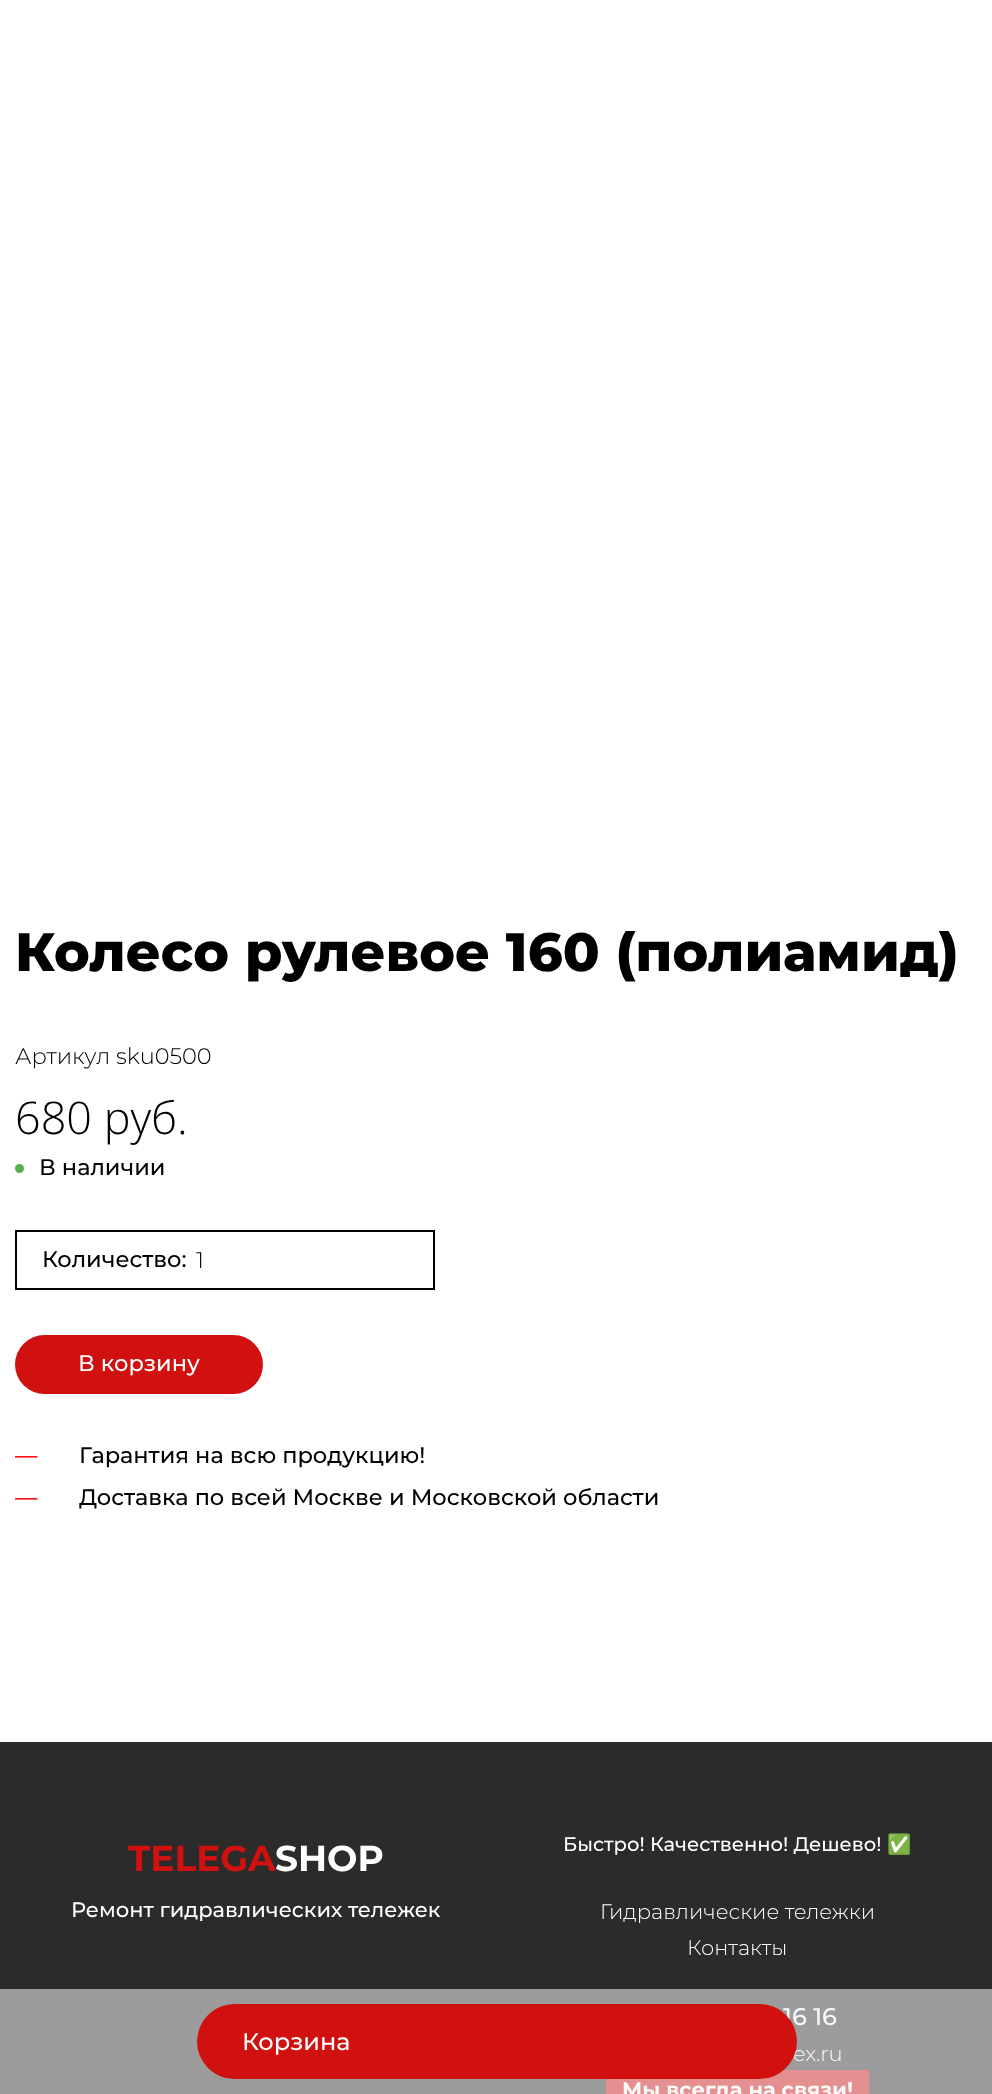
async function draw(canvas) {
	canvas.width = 992;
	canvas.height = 2094;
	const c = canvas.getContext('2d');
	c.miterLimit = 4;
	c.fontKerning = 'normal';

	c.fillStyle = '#fff';
	c.fillRect(0, 0, 992, 2094);
	c.font = '800 54px Montserrat';
	c.fillStyle = '#000';
	c.fillText('Колесо рулевое 160 (полиамид)', 15, 971);
	c.font = '300 22.5px Montserrat';
	c.fillText('Артикул', 15, 1064);
	c.fillText('sku0500', 116, 1064);
	c.font = '300 45px Open Sans';
	c.fillText('680 руб.', 15, 1134);
	c.fillStyle = '#54b348';
	c.beginPath();
	c.arc(19.5, 1168.5, 4.5, 0, 2 * Math.PI);
	c.fill();
	c.font = '500 22.5px Montserrat';
	c.fillStyle = '#000';
	c.fillText('В наличии', 39, 1175);
	c.strokeStyle = '#000';
	c.lineWidth = 2;
	c.strokeRect(16, 1231, 418, 58);
	c.fillText('Количество:', 42, 1267);
	c.font = '300 22.5px Montserrat';
	c.fillText('1', 196, 1268);
	c.fillStyle = '#d11010';
	c.beginPath();
	c.roundRect(15, 1335, 248, 59, 29.5);
	c.fill();
	c.font = '500 22.5px Montserrat';
	c.fillStyle = '#fff';
	c.fillText('В корзину', 78, 1371);
	c.fillStyle = '#f00';
	c.fillText('—', 15, 1463);
	c.fillStyle = '#000';
	c.fillText('Гарантия на всю продукцию!', 79, 1463);
	c.fillStyle = '#f00';
	c.fillText('—', 15, 1505);
	c.fillStyle = '#000';
	c.fillText('Доставка по всей Москве и Московской области', 79, 1505);
	c.fillStyle = '#2b2b2b';
	c.fillRect(0, 1742, 992, 247);
	c.fillStyle = '#9c9c9c';
	c.fillRect(0, 1989, 992, 105);
	c.font = 'bold 36px Montserrat';
	c.fillStyle = '#d11010';
	c.fillText('TELEGA', 128, 1871);
	c.fillStyle = '#fff';
	c.fillText('SHOP', 275, 1871);
	c.font = '500 21px Montserrat';
	c.fillText('Ремонт гидравлических тележек', 71, 1917);
	c.font = '500 19.5px Montserrat';
	c.fillText('Быстро! Качественно! Дешево!', 563, 1851);
	c.font = '19.5px Noto Color Emoji';
	c.fillText('✅', 887, 1851);
	c.font = '300 21px Montserrat';
	c.fillText('Гидравлические тележки', 600, 1919);
	c.fillText('Контакты', 687, 1955);
	c.font = '500 24px Montserrat';
	c.fillStyle = '#f9f9f9';
	c.fillText('16 16', 783, 2025);
	c.font = '300 21px Montserrat';
	c.fillText('ex.ru', 793, 2061);
	c.fillStyle = '#e59090';
	c.fillRect(606, 2070, 263, 24);
	c.font = 'bold 21px Montserrat';
	c.fillStyle = '#f9f9f9';
	c.fillText('Мы всегда на связи!', 622, 2097);
	c.fillStyle = '#d11010';
	c.beginPath();
	c.roundRect(197, 2004, 600, 75, 37.5);
	c.fill();
	c.font = '500 24px Montserrat';
	c.fillStyle = '#fff';
	c.fillText('Корзина', 242, 2050);
}

draw(document.querySelector('canvas'));
